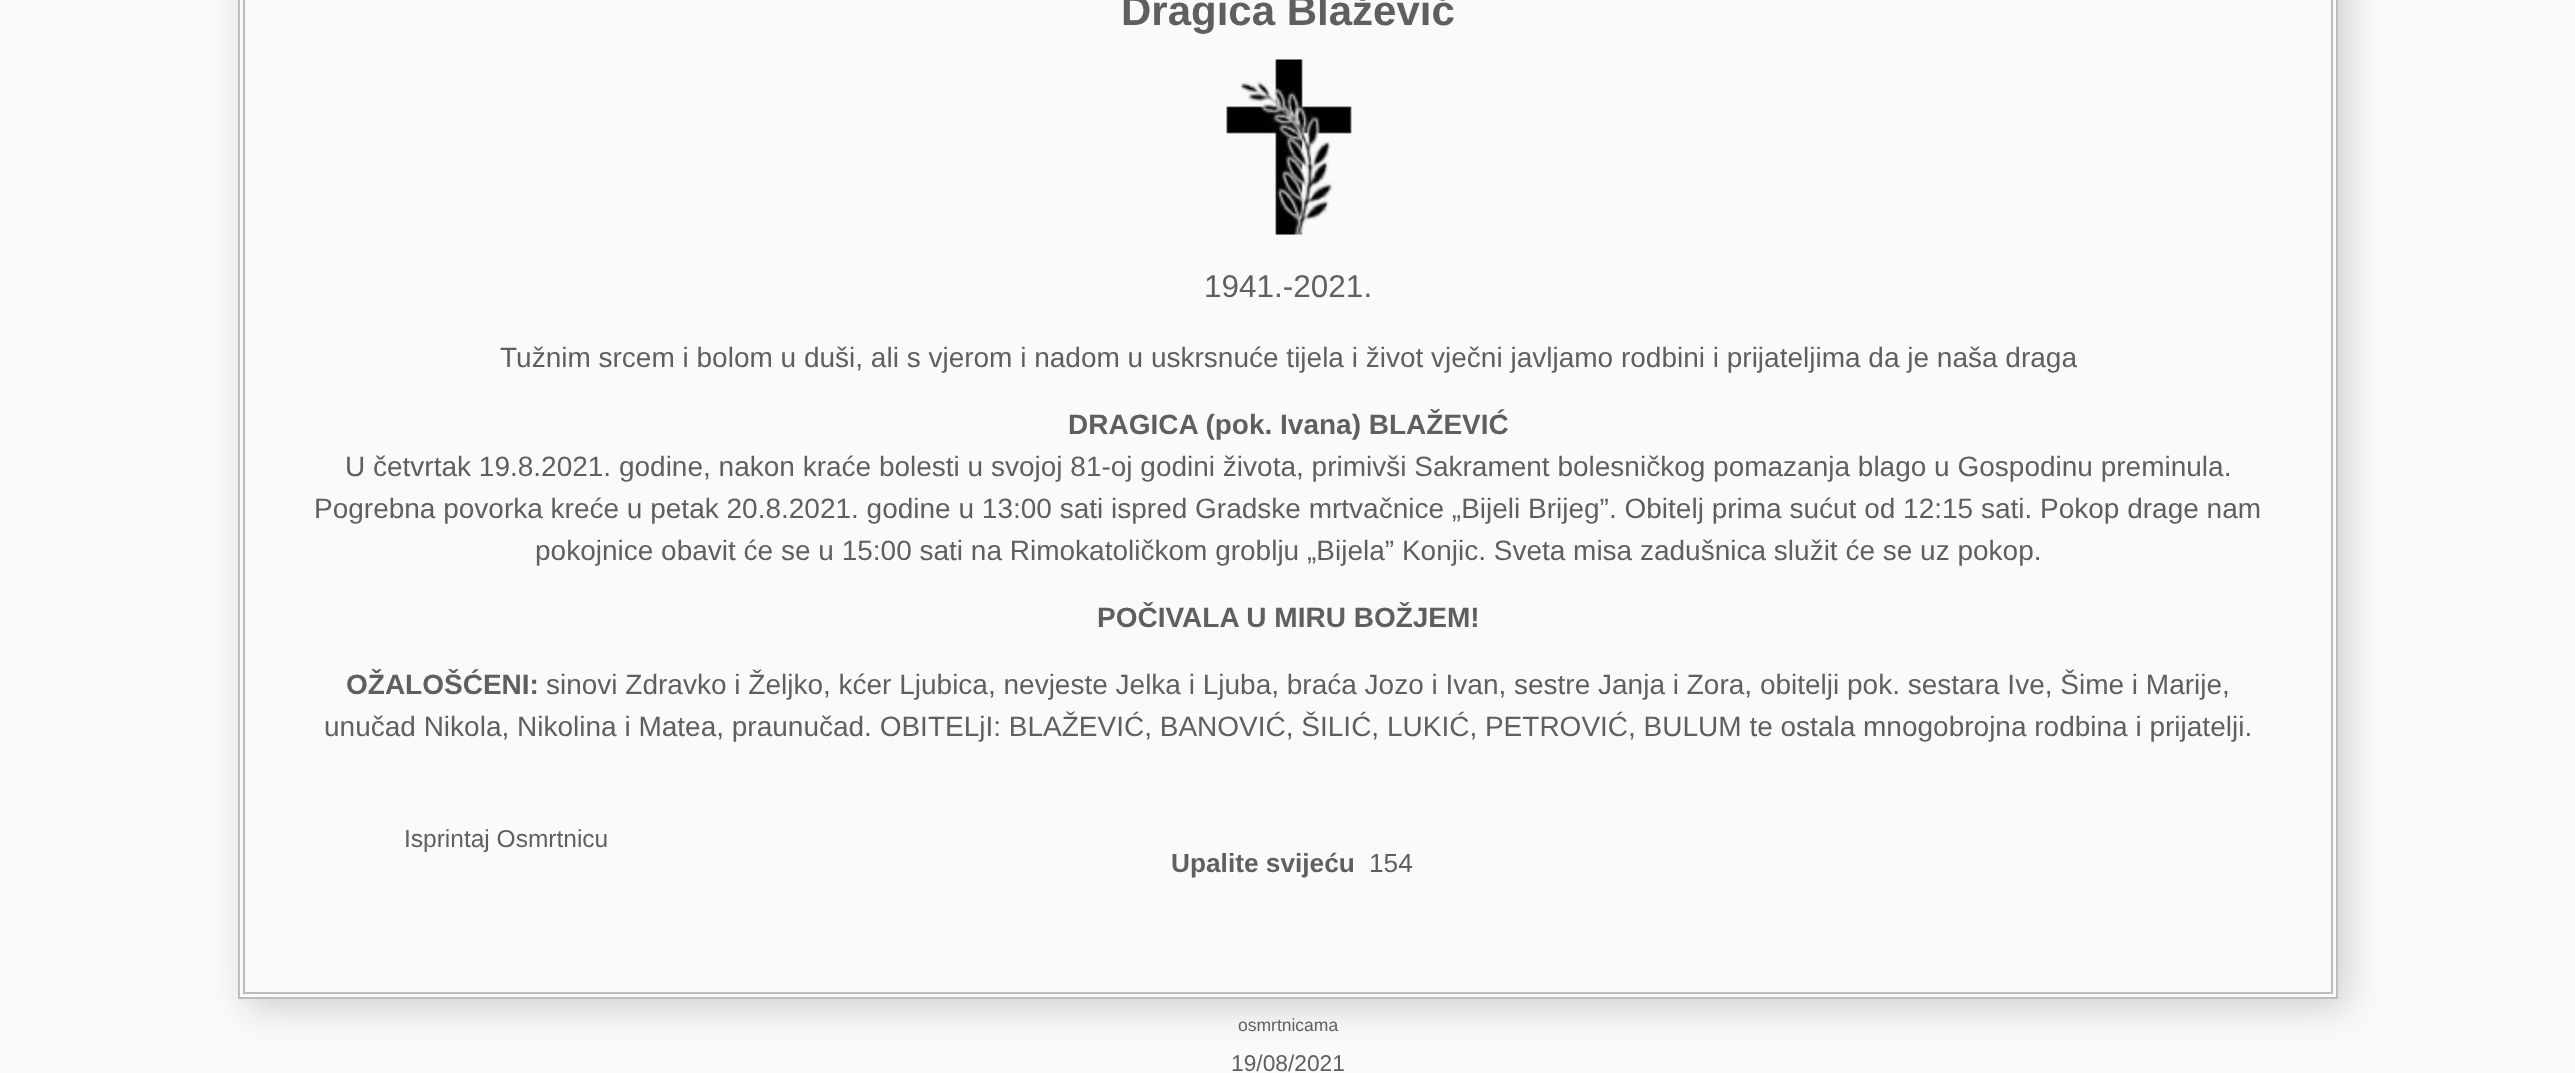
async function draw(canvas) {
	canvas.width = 2575;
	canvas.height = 1073;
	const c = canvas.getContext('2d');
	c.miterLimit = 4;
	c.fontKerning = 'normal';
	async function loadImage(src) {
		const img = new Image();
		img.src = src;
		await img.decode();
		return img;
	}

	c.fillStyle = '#fafafa';
	c.fillRect(0, 0, 2575, 1073);
	c.save();
	c.beginPath();
	c.moveTo(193, 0);
	c.lineTo(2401, 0);
	c.lineTo(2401, 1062);
	c.lineTo(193, 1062);
	c.closePath();
	c.moveTo(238, -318);
	c.lineTo(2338, -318);
	c.lineTo(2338, 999);
	c.lineTo(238, 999);
	c.closePath();
	c.clip('evenodd');
	c.fillStyle = '#cfcfcf';
	c.filter = 'blur(17.5px)';
	c.beginPath();
	c.rect(247, -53, 2100, 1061);
	c.fill();
	c.filter = 'none';
	c.restore();
	c.strokeStyle = '#bdbdbd';
	c.lineWidth = 2;
	c.strokeRect(239, -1, 2098, 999);
	c.strokeRect(244, -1, 2088, 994);
	c.font = 'bold 42px Liberation Sans';
	c.fillStyle = '#5f5f5f';
	c.fillText('Dragica Blažević', 1121, 25);
	c.drawImage(await loadImage('img1.png'), 1226, 59, 126, 176);
	c.font = '31.5px Liberation Sans';
	c.fillText('1941.-2021.', 1204, 297);
	c.font = '28px Liberation Sans';
	c.fillText('Tužnim srcem i bolom u duši, ali s vjerom i nadom u uskrsnuće tijela i život vječni javljamo rodbini i prijateljima da je naša draga', 500, 367);
	c.font = 'bold 28px Liberation Sans';
	c.fillText('DRAGICA (pok. Ivana) BLAŽEVIĆ', 1068, 434);
	c.font = '28px Liberation Sans';
	for (const [text, x, y] of [
		['U četvrtak 19.8.2021. godine, nakon kraće bolesti u svojoj 81-oj godini života, primivši Sakrament bolesničkog pomazanja blago u Gospodinu preminula.', 345, 476],
		['Pogrebna povorka kreće u petak 20.8.2021. godine u 13:00 sati ispred Gradske mrtvačnice „Bijeli Brijeg”. Obitelj prima sućut od 12:15 sati. Pokop drage nam', 314, 518],
		['pokojnice obavit će se u 15:00 sati na Rimokatoličkom groblju „Bijela” Konjic. Sveta misa zadušnica služit će se uz pokop.', 535, 560],
	]) {
		c.fillText(text, x, y);
	}
	c.font = 'bold 28px Liberation Sans';
	c.fillText('POČIVALA U MIRU BOŽJEM!', 1097, 627);
	c.fillText('OŽALOŠĆENI:', 346, 694);
	c.font = '28px Liberation Sans';
	c.fillText('sinovi Zdravko i Željko, kćer Ljubica, nevjeste Jelka i Ljuba, braća Jozo i Ivan, sestre Janja i Zora, obitelji pok. sestara Ive, Šime i Marije,', 546, 694);
	c.fillText('unučad Nikola, Nikolina i Matea, praunučad. OBITELjI: BLAŽEVIĆ, BANOVIĆ, ŠILIĆ, LUKIĆ, PETROVIĆ, BULUM te ostala mnogobrojna rodbina i prijatelji.', 324, 736);
	c.font = '24.5px Liberation Sans';
	c.fillText('Isprintaj Osmrtnicu', 404, 847);
	c.font = 'bold 26.25px Liberation Sans';
	c.fillText('Upalite svijeću', 1171, 872);
	c.font = '26.25px Liberation Sans';
	c.fillText('154', 1369, 872);
	c.font = '17.5px Liberation Sans';
	c.fillText('osmrtnicama', 1238, 1031);
	c.font = '22.75px Liberation Sans';
	c.fillText('19/08/2021', 1231, 1071);
}

draw(document.querySelector('canvas'));
